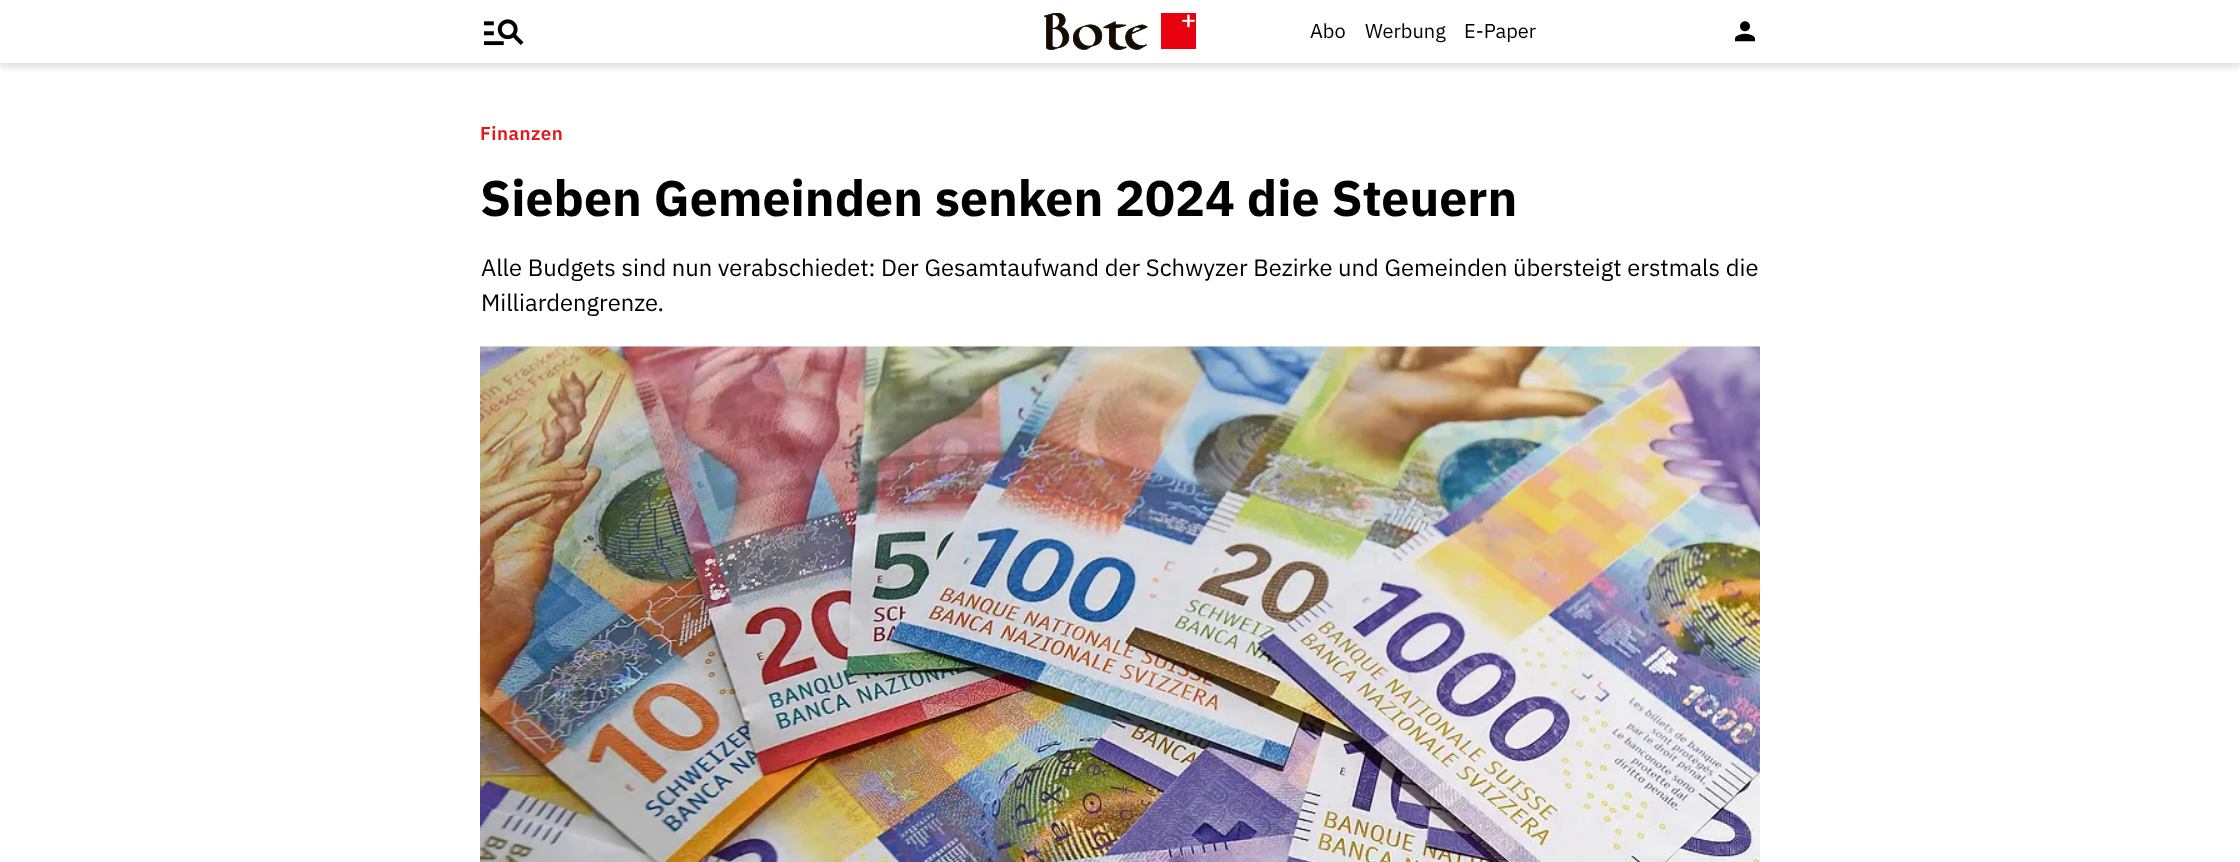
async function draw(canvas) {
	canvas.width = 2240;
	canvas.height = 862;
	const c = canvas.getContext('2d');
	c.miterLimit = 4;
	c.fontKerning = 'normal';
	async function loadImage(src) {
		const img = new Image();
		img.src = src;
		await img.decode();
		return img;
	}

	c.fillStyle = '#fff';
	c.fillRect(0, 0, 2240, 862);
	c.fillStyle = '#00000029';
	c.filter = 'blur(4px)';
	c.beginPath();
	c.rect(0, 4, 2240, 62);
	c.fill();
	c.filter = 'none';
	c.fillStyle = '#fff';
	c.fillRect(0, 0, 2240, 63);
	c.drawImage(await loadImage('img1.png'), 484, 19, 40, 27);
	c.drawImage(await loadImage('img2.png'), 1044, 13, 152, 37);
	c.font = '20px IBM Plex Sans';
	c.fillStyle = '#000';
	for (const [text, x, y] of [
		['Abo', 1310, 38],
		['Werbung', 1365, 38],
		['E-Paper', 1464, 38],
	]) {
		c.fillText(text, x, y);
	}
	c.drawImage(await loadImage('img3.png'), 1735, 21, 20, 21);
	c.letterSpacing = '0.5px';
	c.font = '600 18.75px IBM Plex Sans';
	c.fillStyle = '#e61717';
	c.fillText('Finanzen', 480, 140);
	c.letterSpacing = '0px';
	c.font = 'bold 50px IBM Plex Sans';
	c.fillStyle = '#000';
	c.fillText('Sieben Gemeinden senken 2024 die Steuern', 480, 216);
	c.font = '23.75px IBM Plex Sans';
	c.fillText('Alle Budgets sind nun verabschiedet: Der Gesamtaufwand der Schwyzer Bezirke und Gemeinden übersteigt erstmals die', 481, 276);
	c.fillText('Milliardengrenze.', 481, 311);
	c.drawImage(await loadImage('img4.png'), 480, 346, 1280, 516);
}

draw(document.querySelector('canvas'));
